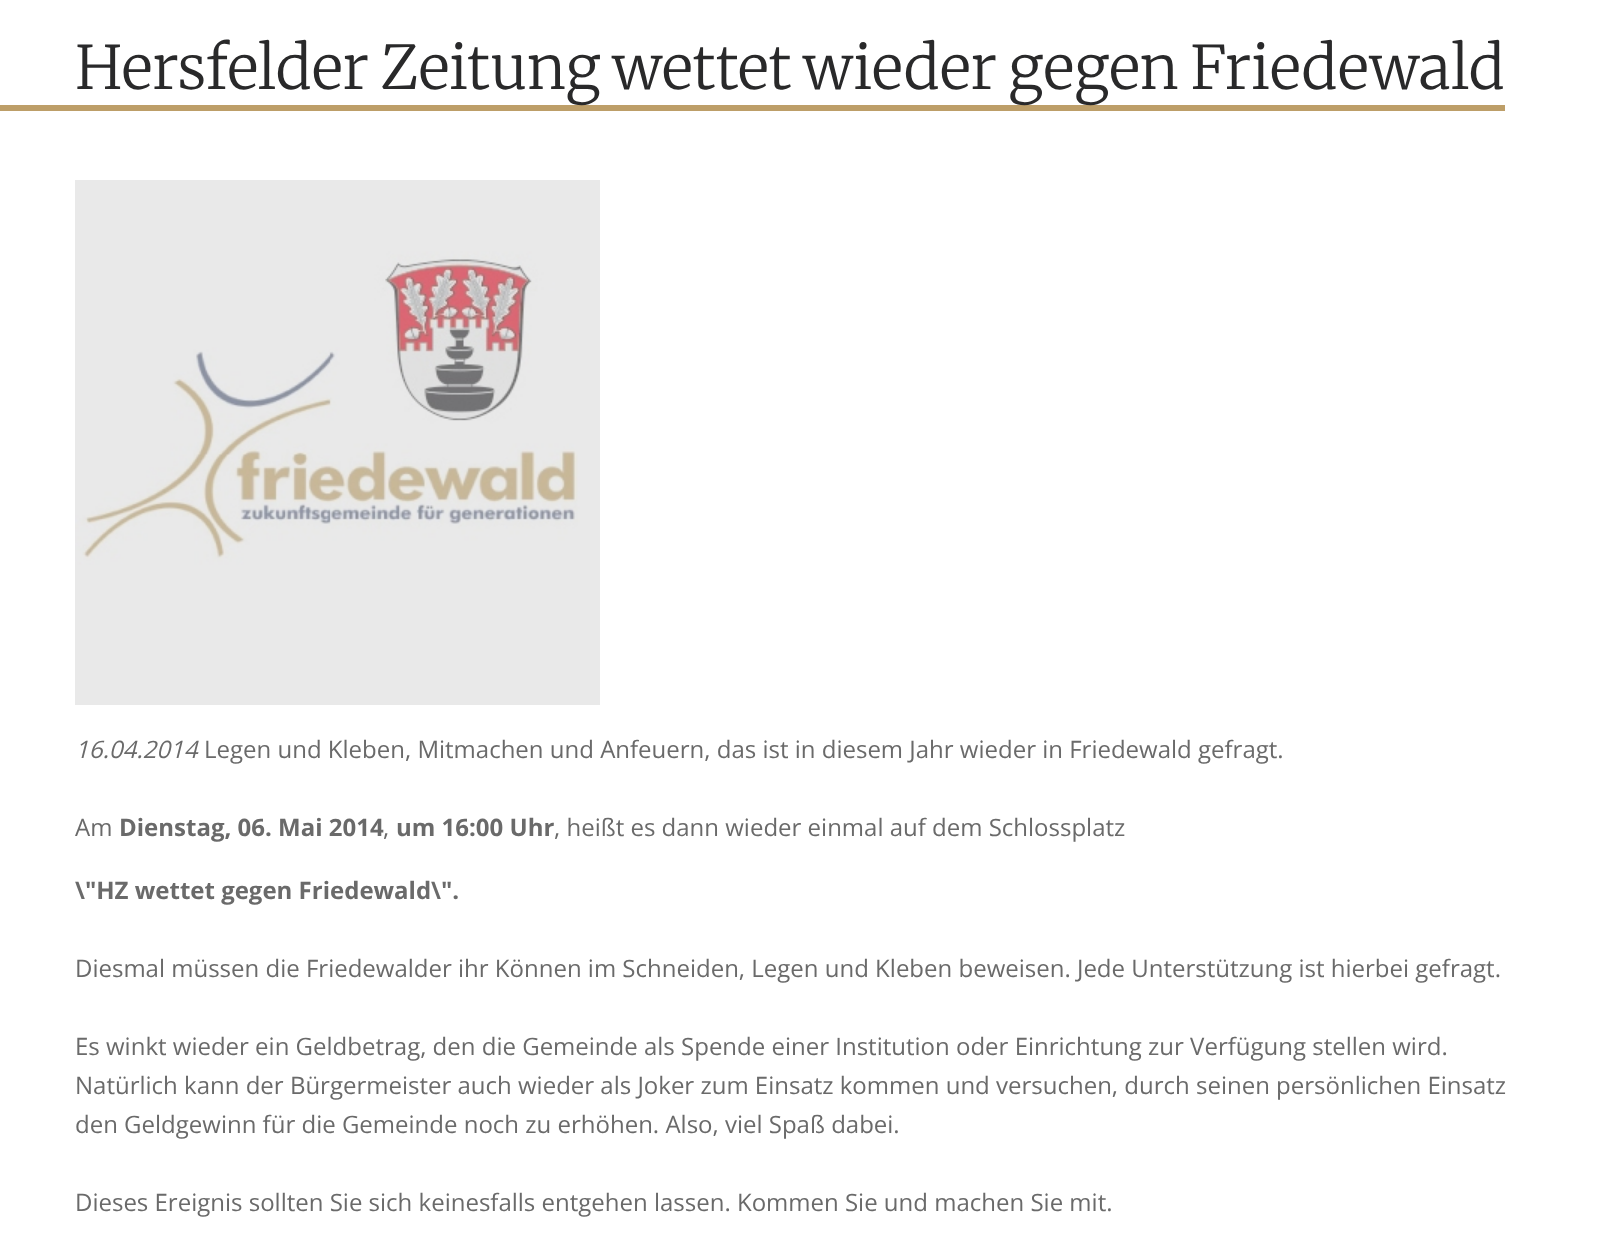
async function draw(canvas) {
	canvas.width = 1608;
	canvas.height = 1238;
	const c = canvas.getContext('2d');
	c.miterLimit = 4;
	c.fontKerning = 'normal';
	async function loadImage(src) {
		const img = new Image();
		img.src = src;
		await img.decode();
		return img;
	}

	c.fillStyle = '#fff';
	c.fillRect(0, 0, 1608, 1238);
	c.fillStyle = '#bd9e68';
	c.fillRect(0, 105, 1505, 6);
	c.wordSpacing = '-3px';
	c.font = '300 60px Merriweather';
	c.fillStyle = '#29292a';
	c.fillText('Hersfelder Zeitung wettet wieder gegen Friedewald', 75, 89);
	c.drawImage(await loadImage('img1.png'), 75, 180, 525, 525);
	c.wordSpacing = '0px';
	c.font = 'italic 24px Open Sans';
	c.fillStyle = '#6a6a6a';
	c.fillText('16.04.2014', 75, 758);
	c.font = '24px Open Sans';
	c.fillText('Legen und Kleben, Mitmachen und Anfeuern, das ist in diesem Jahr wieder in Friedewald gefragt.', 204, 758);
	c.fillText('Am', 75, 836);
	c.font = 'bold 24px Open Sans';
	c.fillText('Dienstag, 06. Mai 2014', 119, 836);
	c.font = '24px Open Sans';
	c.fillText(',', 383, 836);
	c.font = 'bold 24px Open Sans';
	c.fillText('um 16:00 Uhr', 396, 836);
	c.font = '24px Open Sans';
	c.fillText(', heißt es dann wieder einmal auf dem Schlossplatz', 554, 836);
	c.font = 'bold 24px Open Sans';
	c.fillText('\\"HZ wettet gegen Friedewald\\".', 75, 899);
	c.font = '24px Open Sans';
	for (const [text, x, y] of [
		['Diesmal müssen die Friedewalder ihr Können im Schneiden, Legen und Kleben beweisen. Jede Unterstützung ist hierbei gefragt.', 75, 977],
		['Es winkt wieder ein Geldbetrag, den die Gemeinde als Spende einer Institution oder Einrichtung zur Verfügung stellen wird.', 75, 1055],
		['Natürlich kann der Bürgermeister auch wieder als Joker zum Einsatz kommen und versuchen, durch seinen persönlichen Einsatz', 75, 1094],
		['den Geldgewinn für die Gemeinde noch zu erhöhen. Also, viel Spaß dabei.', 75, 1133],
		['Dieses Ereignis sollten Sie sich keinesfalls entgehen lassen. Kommen Sie und machen Sie mit.', 75, 1211],
	]) {
		c.fillText(text, x, y);
	}
}

draw(document.querySelector('canvas'));
